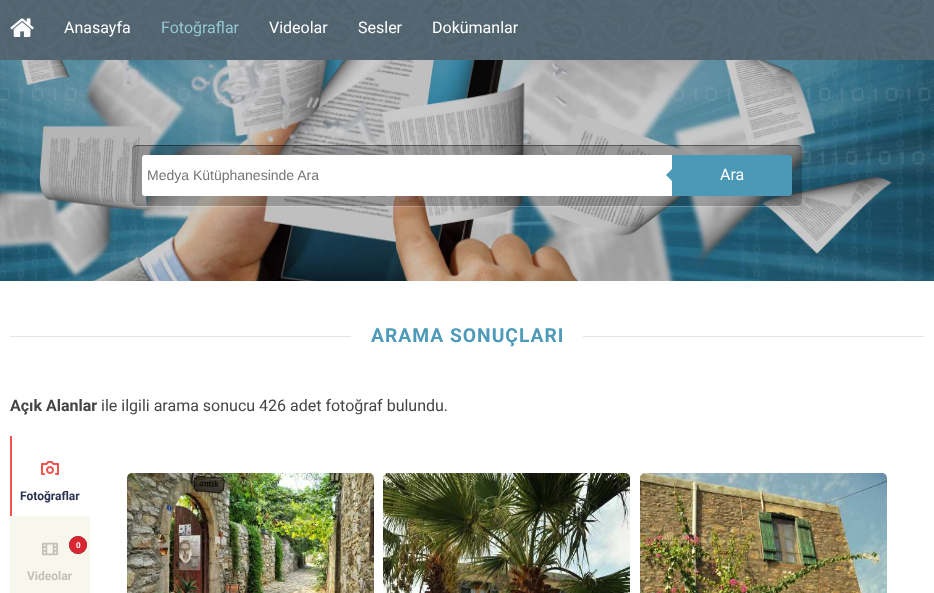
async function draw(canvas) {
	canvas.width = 934;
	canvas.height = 593;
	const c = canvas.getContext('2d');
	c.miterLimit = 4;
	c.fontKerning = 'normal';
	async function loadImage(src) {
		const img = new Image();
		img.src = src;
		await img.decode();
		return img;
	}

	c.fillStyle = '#fff';
	c.fillRect(0, 0, 934, 593);
	c.drawImage(await loadImage('img1.png'), 0, 60, 934, 221);
	c.fillStyle = '#546672';
	c.fillRect(0, 0, 934, 60);
	c.drawImage(await loadImage('img2.png'), 3, 0, 929, 60);
	c.drawImage(await loadImage('img3.png'), 10, 18, 24, 19);
	c.font = '16px Roboto';
	c.fillStyle = '#fff';
	c.fillText('Anasayfa', 64, 33);
	c.fillStyle = '#95c8d6';
	c.fillText('Fotoğraflar', 161, 33);
	c.fillStyle = '#fff';
	for (const [text, x, y] of [
		['Videolar', 269, 33],
		['Sesler', 358, 33],
		['Dokümanlar', 432, 33],
	]) {
		c.fillText(text, x, y);
	}
	c.fillStyle = '#ffffff33';
	c.beginPath();
	c.moveTo(132, 201);
	c.lineTo(132, 202);
	c.bezierCurveTo(132, 205, 134, 207, 137, 207);
	c.lineTo(797, 207);
	c.bezierCurveTo(800, 207, 802, 205, 802, 202);
	c.lineTo(802, 201);
	c.bezierCurveTo(802, 204, 800, 206, 797, 206);
	c.lineTo(137, 206);
	c.bezierCurveTo(134, 206, 132, 204, 132, 201);
	c.closePath();
	c.fill();
	c.fillStyle = '#00000033';
	c.beginPath();
	c.roundRect(132, 145, 670, 61, 5);
	c.fill();
	c.fillStyle = '#00000066';
	c.beginPath();
	c.moveTo(137, 146);
	c.lineTo(797, 146);
	c.bezierCurveTo(800, 146, 802, 148, 802, 151);
	c.lineTo(802, 150);
	c.bezierCurveTo(802, 147, 800, 145, 797, 145);
	c.lineTo(137, 145);
	c.bezierCurveTo(134, 145, 132, 147, 132, 150);
	c.lineTo(132, 151);
	c.bezierCurveTo(132, 148, 134, 146, 137, 146);
	c.closePath();
	c.fill();
	c.fillStyle = '#fff';
	c.beginPath();
	c.roundRect(142, 155, 530, 41, [3, 0, 0, 3]);
	c.fill();
	c.font = '14px Liberation Sans';
	c.fillStyle = '#757575';
	c.fillText('Medya Kütüphanesinde Ara', 147, 180);
	c.fillStyle = '#4b98b7';
	c.beginPath();
	c.roundRect(672, 155, 120, 41, [0, 3, 3, 0]);
	c.fill();
	c.beginPath();
	c.moveTo(674, 167);
	c.lineTo(674, 183);
	c.lineTo(666, 175);
	c.closePath();
	c.fill();
	c.font = '16px Roboto';
	c.fillStyle = '#fff';
	c.fillText('Ara', 720, 180);
	c.fillStyle = '#e5e5e5';
	c.fillRect(10, 336, 914, 1);
	c.fillStyle = '#fff';
	c.fillRect(351, 336, 232, 1);
	c.letterSpacing = '1px';
	c.font = 'bold 19.25px Roboto';
	c.fillStyle = '#4e9ab9';
	c.fillText('ARAMA SONUÇLARI', 371, 342);
	c.letterSpacing = '0px';
	c.font = 'bold 16px Roboto';
	c.fillStyle = '#454545';
	c.fillText('Açık Alanlar', 10, 411);
	c.font = '16px Roboto';
	c.fillText('ile ilgili arama sonucu 426 adet fotoğraf bulundu.', 101, 411);
	c.fillStyle = '#f8f7ee';
	c.fillRect(10, 516, 80, 77);
	c.fillStyle = '#f05451';
	c.fillRect(10, 436, 2, 80);
	c.drawImage(await loadImage('img4.png'), 41, 461, 18, 14);
	c.font = 'bold 12px Roboto';
	c.fillStyle = '#29324e';
	c.fillText('Fotoğraflar', 20, 500);
	c.drawImage(await loadImage('img5.png'), 42, 542, 16, 14);
	c.fillStyle = '#333';
	c.filter = 'blur(0.5px)';
	c.beginPath();
	c.roundRect(69, 536, 18, 18, 9);
	c.fill();
	c.filter = 'none';
	c.fillStyle = '#d82731';
	c.beginPath();
	c.arc(78, 545, 9, 0, 2 * Math.PI);
	c.fill();
	c.font = 'bold 8px Roboto';
	c.fillStyle = '#fff';
	c.fillText('0', 76, 548);
	c.font = 'bold 12px Roboto';
	c.fillStyle = '#c3c2b9';
	c.fillText('Videolar', 27, 580);
	c.drawImage(await loadImage('img6.png'), 127, 473, 247, 120);
	c.drawImage(await loadImage('img7.png'), 383, 473, 247, 120);
	c.drawImage(await loadImage('img8.png'), 640, 473, 247, 120);
}

draw(document.querySelector('canvas'));
